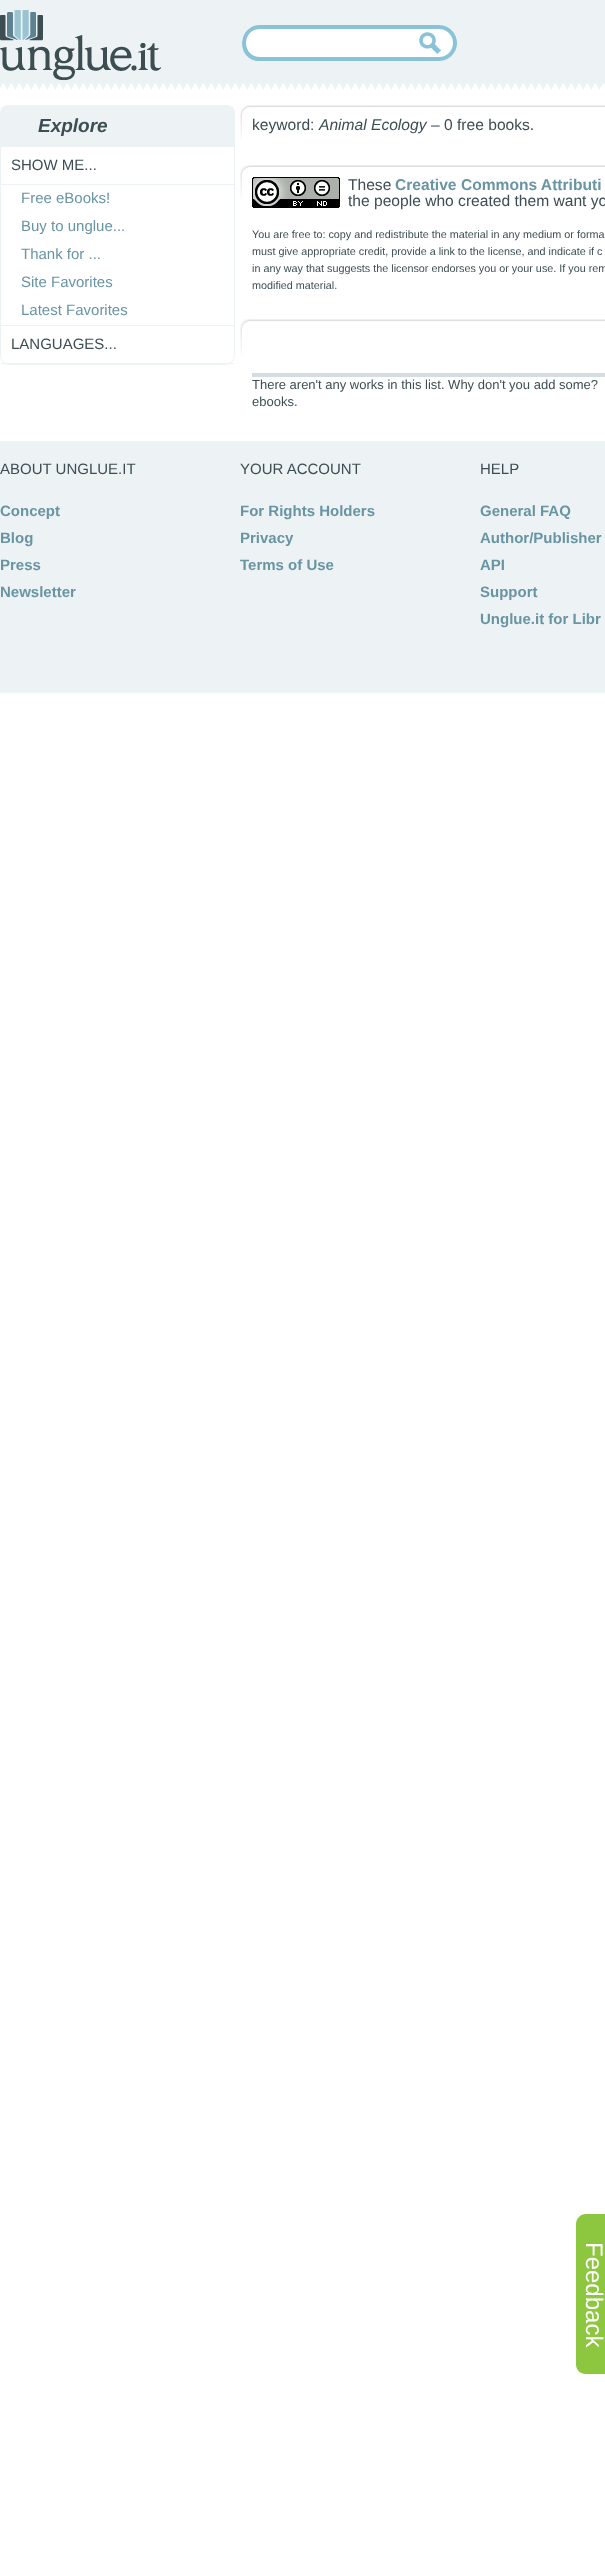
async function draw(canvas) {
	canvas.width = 605;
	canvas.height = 2567;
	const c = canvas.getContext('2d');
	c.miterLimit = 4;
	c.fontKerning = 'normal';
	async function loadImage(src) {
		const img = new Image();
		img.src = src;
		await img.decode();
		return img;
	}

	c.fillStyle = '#fff';
	c.fillRect(0, 0, 605, 2567);
	c.drawImage(await loadImage('img1.png'), 0, 0, 605, 90);
	c.drawImage(await loadImage('img2.png'), 0, 10, 161, 70);
	c.beginPath();
	c.roundRect(242, 25, 175, 36, [18, 0, 0, 18]);
	c.fill();
	c.fillStyle = '#8ac3d7';
	c.beginPath();
	c.moveTo(260, 25);
	c.lineTo(417, 25);
	c.lineTo(417, 61);
	c.lineTo(256, 61);
	c.bezierCurveTo(235, 56, 239, 25, 260, 25);
	c.closePath();
	c.moveTo(260, 29);
	c.lineTo(417, 29);
	c.lineTo(417, 57);
	c.lineTo(260, 57);
	c.bezierCurveTo(252, 57, 246, 51, 246, 43);
	c.bezierCurveTo(246, 35, 252, 29, 260, 29);
	c.closePath();
	c.fill('evenodd');
	c.drawImage(await loadImage('img3.png'), 417, 25, 40, 36);
	c.fillStyle = '#edf3f4';
	c.beginPath();
	c.roundRect(0, 105, 235, 40, [8, 8, 0, 0]);
	c.fill();
	c.font = 'italic bold 19px Liberation Sans';
	c.fillStyle = '#3d4e53';
	c.fillText('Explore', 38, 132);
	c.beginPath();
	c.roundRect(0.5, 145.5, 234, 219, [0, 0, 9.5, 9.5]);
	c.strokeStyle = '#edf3f4';
	c.stroke();
	c.fillStyle = '#edf3f4';
	c.fillRect(1, 146, 233, 1);
	c.fillRect(1, 184, 233, 1);
	c.font = '15px Liberation Sans';
	c.fillStyle = '#3d4e53';
	c.fillText('SHOW ME...', 11, 170);
	c.fillStyle = '#6994a3';
	for (const [text, x, y] of [
		['Free eBooks!', 21, 203],
		['Buy to unglue...', 21, 231],
		['Thank for ...', 21, 259],
		['Site Favorites', 21, 287],
		['Latest Favorites', 21, 315],
	]) {
		c.fillText(text, x, y);
	}
	c.fillStyle = '#edf3f4';
	c.fillRect(1, 325, 233, 1);
	c.fillRect(1, 363, 233, 1);
	c.fillStyle = '#3d4e53';
	c.fillText('LANGUAGES...', 11, 349);
	c.drawImage(await loadImage('img4.png'), 240, 105, 365, 35);
	c.font = '15.6px Liberation Sans';
	c.fillText('keyword:', 252, 130);
	c.font = 'italic 15.6px Liberation Sans';
	c.fillText('Animal Ecology', 319, 130);
	c.font = '15.6px Liberation Sans';
	c.fillText('– 0 free books.', 431, 130);
	c.drawImage(await loadImage('img5.png'), 240, 165, 365, 34);
	c.drawImage(await loadImage('img6.png'), 252, 177, 88, 31);
	c.fillText('These', 348, 190);
	c.font = 'bold 15.6px Liberation Sans';
	c.fillStyle = '#6994a3';
	c.fillText('Creative Commons Attributi', 395, 190);
	c.font = '15.6px Liberation Sans';
	c.fillStyle = '#3d4e53';
	c.fillText('the people who created them want yo', 348, 206);
	c.font = '10.8px Liberation Sans';
	for (const [text, x, y] of [
		['You are free to: copy and redistribute the material in any medium or forma', 252, 238],
		['must give appropriate credit, provide a link to the license, and indicate if c', 252, 255],
		['in any way that suggests the licensor endorses you or your use. If you rem', 252, 272],
		['modified material.', 252, 289],
	]) {
		c.fillText(text, x, y);
	}
	c.drawImage(await loadImage('img7.png'), 240, 319, 365, 35);
	c.fillStyle = '#d6dde0';
	c.fillRect(252, 373, 353, 4);
	c.font = '13px Liberation Sans';
	c.fillStyle = '#3d4e53';
	c.fillText('There aren\'t any works in this list. Why don\'t you add some?', 252, 389);
	c.fillText('ebooks.', 252, 406);
	c.fillStyle = '#edf3f4';
	c.fillRect(0, 441, 605, 252);
	c.font = '15px Liberation Sans';
	c.fillStyle = '#3d4e53';
	c.fillText('ABOUT UNGLUE.IT', 0, 474);
	c.font = 'bold 15px Liberation Sans';
	c.fillStyle = '#6994a3';
	for (const [text, x, y] of [
		['Concept', 0, 516],
		['Blog', 0, 543],
		['Press', 0, 570],
		['Newsletter', 0, 597],
	]) {
		c.fillText(text, x, y);
	}
	c.font = '15px Liberation Sans';
	c.fillStyle = '#3d4e53';
	c.fillText('YOUR ACCOUNT', 240, 474);
	c.font = 'bold 15px Liberation Sans';
	c.fillStyle = '#6994a3';
	for (const [text, x, y] of [
		['For Rights Holders', 240, 516],
		['Privacy', 240, 543],
		['Terms of Use', 240, 570],
	]) {
		c.fillText(text, x, y);
	}
	c.font = '15px Liberation Sans';
	c.fillStyle = '#3d4e53';
	c.fillText('HELP', 480, 474);
	c.font = 'bold 15px Liberation Sans';
	c.fillStyle = '#6994a3';
	for (const [text, x, y] of [
		['General FAQ', 480, 516],
		['Author/Publisher', 480, 543],
		['API', 480, 570],
		['Support', 480, 597],
		['Unglue.it for Libr', 480, 624],
	]) {
		c.fillText(text, x, y);
	}
	c.fillStyle = '#8dc63f';
	c.beginPath();
	c.moveTo(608, 2214);
	c.lineTo(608, 2374);
	c.lineTo(586, 2374);
	c.bezierCurveTo(580, 2374, 576, 2370, 576, 2364);
	c.lineTo(576, 2224);
	c.bezierCurveTo(576, 2219, 580, 2214, 586, 2214);
	c.closePath();
	c.fill();
	c.font = '24px Liberation Sans';
	c.fillStyle = '#fff';
	c.save();
	c.translate(586, 2242);
	c.rotate(90 * Math.PI / 180);
	c.fillText('Feedback', 0, 0);
	c.restore();
}

draw(document.querySelector('canvas'));
